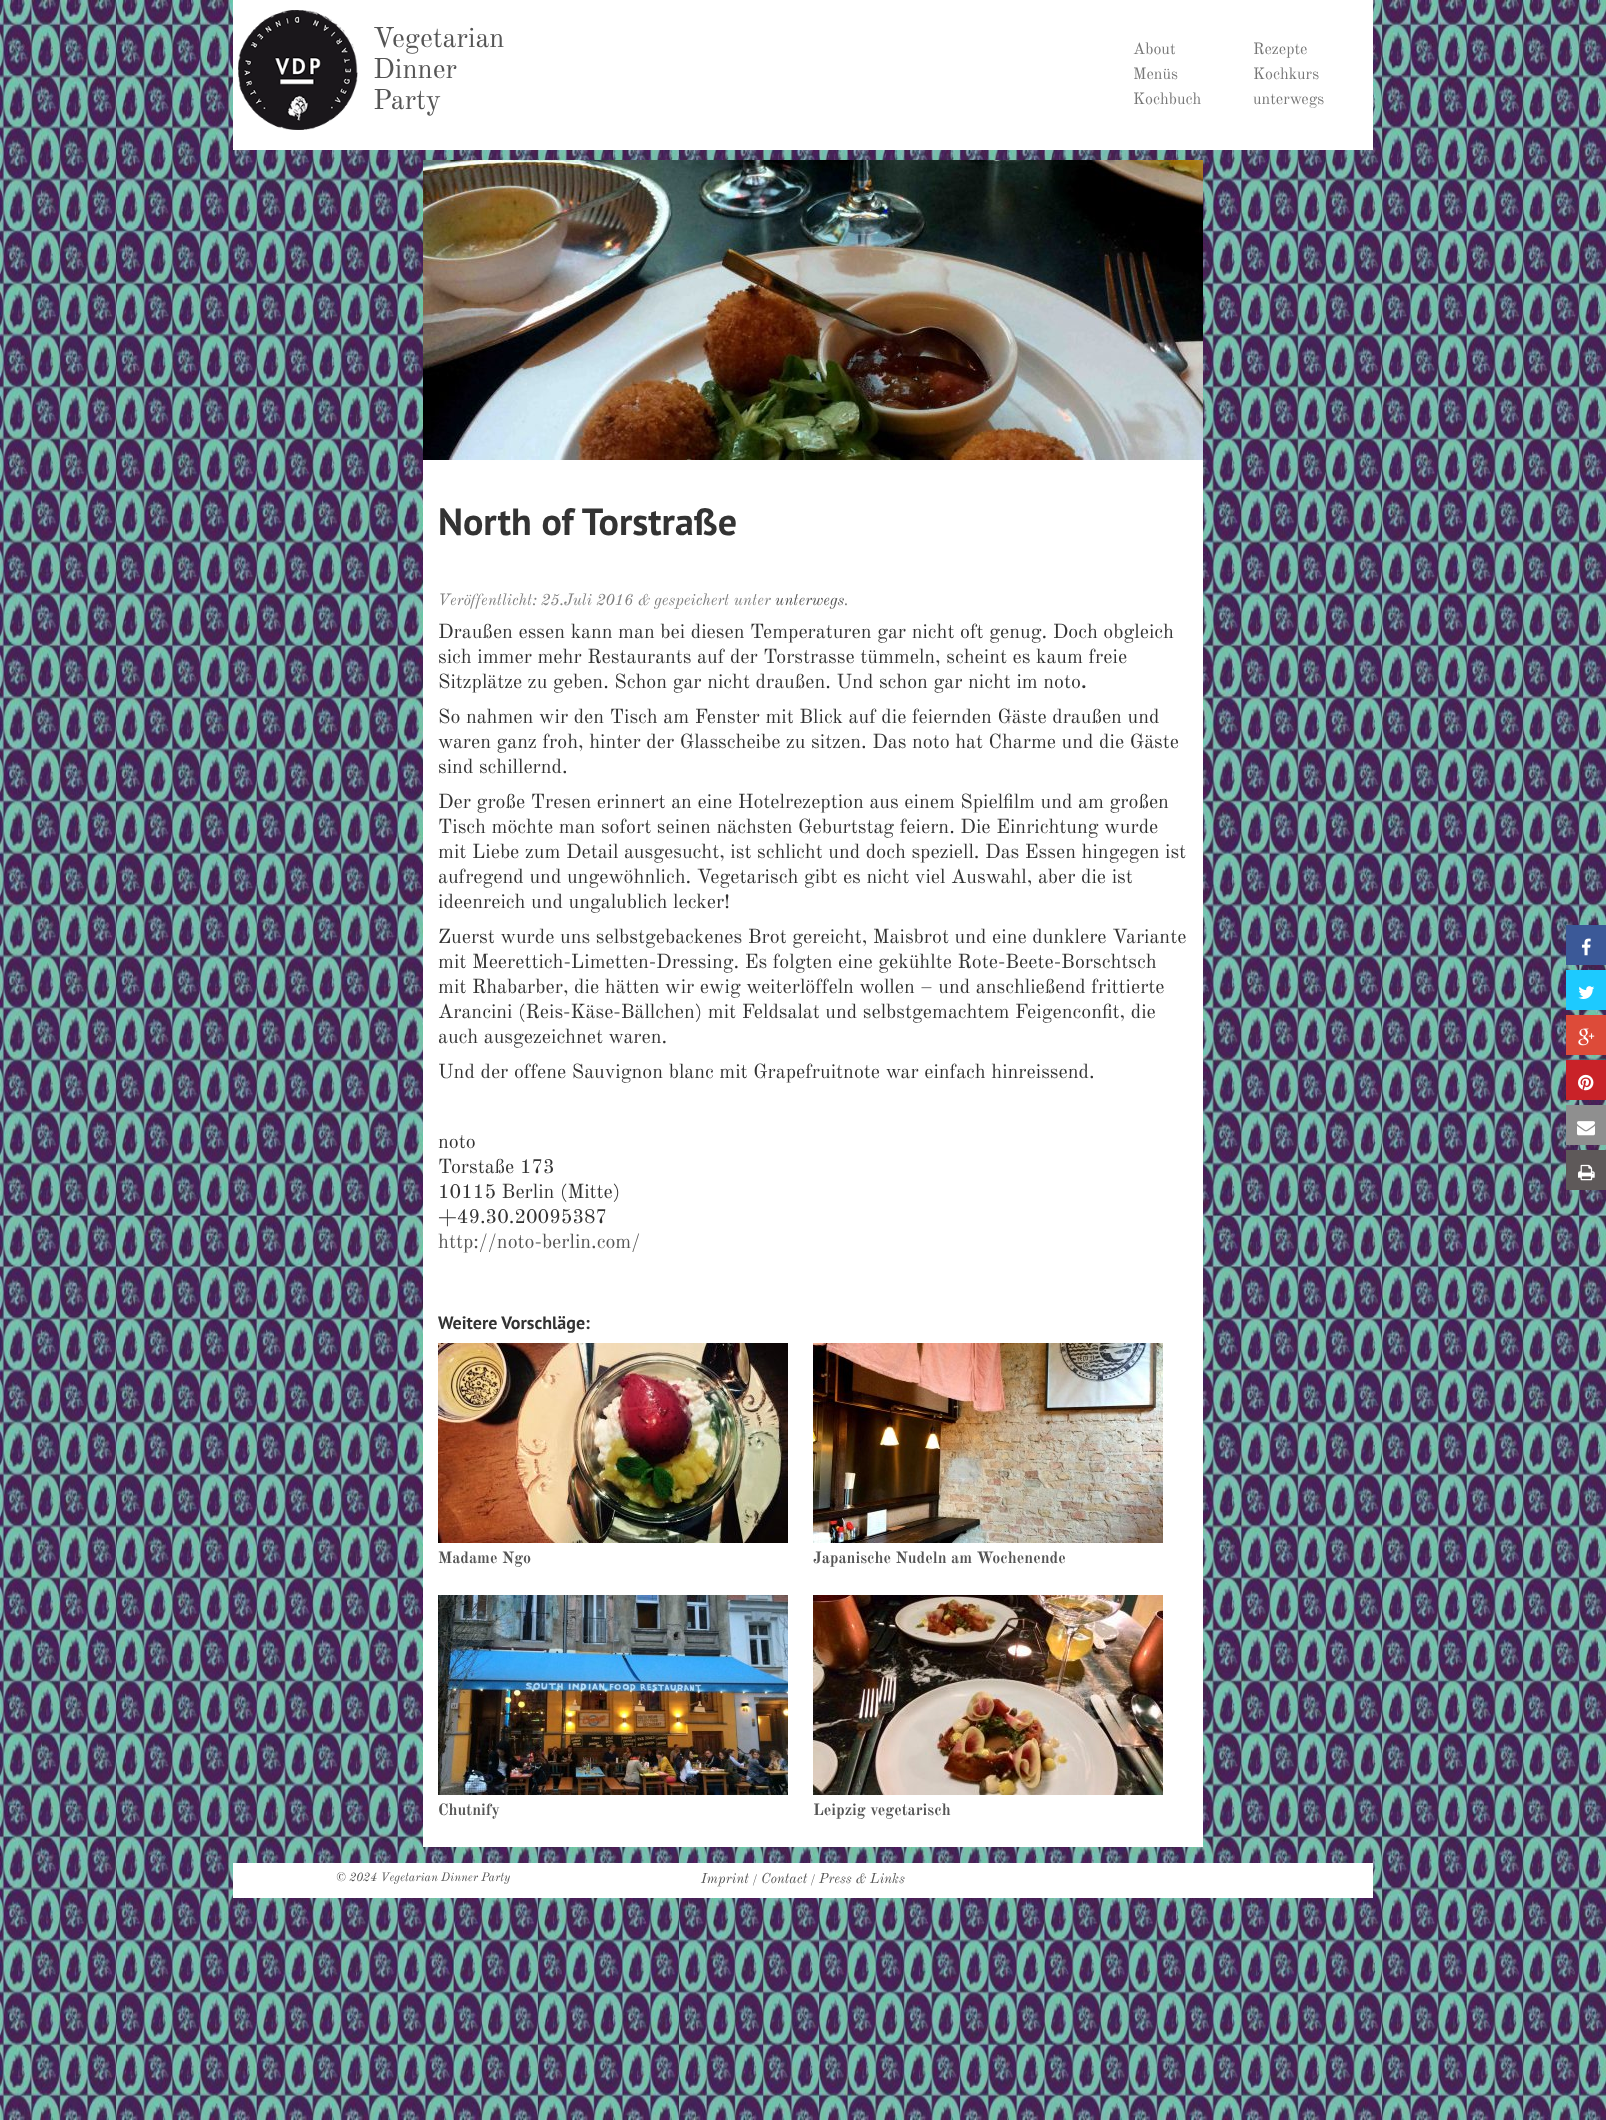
async function draw(canvas) {
	canvas.width = 1606;
	canvas.height = 2120;
	const c = canvas.getContext('2d');
	c.miterLimit = 4;
	c.fontKerning = 'normal';
	async function loadImage(src) {
		const img = new Image();
		img.src = src;
		await img.decode();
		return img;
	}

	c.fillStyle = '#fff';
	c.fillRect(0, 0, 1606, 2120);
	c.drawImage(await loadImage('img1.png'), 0, 0, 1606, 2120);
	c.fillRect(233, 0, 1140, 150);
	c.drawImage(await loadImage('img2.png'), 238, 10, 120, 120);
	c.font = '28px Old Standard TT';
	c.fillStyle = '#555';
	for (const [text, x, y] of [
		['Vegetarian', 373, 47],
		['Dinner', 373, 78],
		['Party', 373, 109],
	]) {
		c.fillText(text, x, y);
	}
	c.font = '16px Old Standard TT';
	c.fillStyle = '#777';
	for (const [text, x, y] of [
		['About', 1133, 54],
		['Rezepte', 1253, 54],
		['Menüs', 1133, 79],
		['Kochkurs', 1253, 79],
		['Kochbuch', 1133, 104],
		['unterwegs', 1253, 104],
	]) {
		c.fillText(text, x, y);
	}
	c.fillStyle = '#fff';
	c.fillRect(423, 460, 780, 1387);
	c.drawImage(await loadImage('img3.png'), 423, 160, 780, 300);
	c.font = 'bold 38px PT Sans';
	c.fillStyle = '#333';
	c.fillText('North of Torstraße', 438, 535);
	c.font = 'italic 16px Old Standard TT';
	c.fillStyle = '#808080';
	c.fillText('Veröffentlicht: 25.Juli 2016 & gespeichert unter', 438, 605);
	c.fillStyle = '#555';
	c.fillText('unterwegs', 775, 605);
	c.fillStyle = '#808080';
	c.fillText('.', 844, 605);
	c.font = '20px Old Standard TT';
	c.fillStyle = '#333';
	for (const [text, x, y] of [
		['Draußen essen kann man bei diesen Temperaturen gar nicht oft genug. Doch obgleich', 438, 638],
		['sich immer mehr Restaurants auf der Torstrasse tümmeln, scheint es kaum freie', 438, 663],
		['Sitzplätze zu geben. Schon gar nicht draußen. Und schon gar nicht im noto', 438, 688],
	]) {
		c.fillText(text, x, y);
	}
	c.font = 'bold 20px Old Standard TT';
	c.fillText('.', 1081, 688);
	c.font = '20px Old Standard TT';
	for (const [text, x, y] of [
		['So nahmen wir den Tisch am Fenster mit Blick auf die feiernden Gäste draußen und', 438, 723],
		['waren ganz froh, hinter der Glasscheibe zu sitzen. Das noto hat Charme und die Gäste', 438, 748],
		['sind schillernd.', 438, 773],
		['Der große Tresen erinnert an eine Hotelrezeption aus einem Spielfilm und am großen', 438, 808],
		['Tisch möchte man sofort seinen nächsten Geburtstag feiern. Die Einrichtung wurde', 438, 833],
		['mit Liebe zum Detail ausgesucht, ist schlicht und doch speziell. Das Essen hingegen ist', 438, 858],
		['aufregend und ungewöhnlich. Vegetarisch gibt es nicht viel Auswahl, aber die ist', 438, 883],
		['ideenreich und ungalublich lecker!', 438, 908],
		['Zuerst wurde uns selbstgebackenes Brot gereicht, Maisbrot und eine dunklere Variante', 438, 943],
		['mit Meerettich-Limetten-Dressing. Es folgten eine gekühlte Rote-Beete-Borschtsch', 438, 968],
		['mit Rhabarber, die hätten wir ewig weiterlöffeln wollen – und anschließend frittierte', 438, 993],
		['Arancini (Reis-Käse-Bällchen) mit Feldsalat und selbstgemachtem Feigenconfit, die', 438, 1018],
		['auch ausgezeichnet waren.', 438, 1043],
		['Und der offene Sauvignon blanc mit Grapefruitnote war einfach hinreissend.', 438, 1078],
		['noto', 438, 1148],
		['Torstaße 173', 438, 1173],
		['10115 Berlin (Mitte)', 438, 1198],
		['+49.30.20095387', 438, 1223],
	]) {
		c.fillText(text, x, y);
	}
	c.fillStyle = '#555';
	c.fillText('http://noto-berlin.com/', 438, 1248);
	c.font = 'bold 18px PT Sans';
	c.fillStyle = '#333';
	c.fillText('Weitere Vorschläge:', 438, 1329);
	c.drawImage(await loadImage('img4.png'), 438, 1343, 350, 200);
	c.font = 'bold 16px Old Standard TT';
	c.fillStyle = '#555';
	c.fillText('Madame Ngo', 438, 1563);
	c.drawImage(await loadImage('img5.png'), 813, 1343, 350, 200);
	c.fillText('Japanische Nudeln am Wochenende', 813, 1563);
	c.drawImage(await loadImage('img6.png'), 438, 1595, 350, 200);
	c.fillText('Chutnify', 438, 1815);
	c.drawImage(await loadImage('img7.png'), 813, 1595, 350, 200);
	c.fillText('Leipzig vegetarisch', 813, 1815);
	c.fillStyle = '#fff';
	c.fillRect(233, 1863, 1140, 35);
	c.font = 'italic 12px Old Standard TT';
	c.fillStyle = '#555';
	c.fillText('© 2024 Vegetarian Dinner Party', 336, 1881);
	c.font = 'italic 14px Old Standard TT';
	c.fillText('Imprint', 701, 1883);
	c.font = 'italic 12px Old Standard TT';
	c.fillText('/', 752, 1883);
	c.font = 'italic 14px Old Standard TT';
	c.fillText('Contact', 761, 1883);
	c.font = 'italic 12px Old Standard TT';
	c.fillText('/', 810, 1883);
	c.font = 'italic 14px Old Standard TT';
	c.fillText('Press & Links', 819, 1883);
	c.fillStyle = '#3b5998';
	c.fillRect(1566, 925, 40, 40);
	c.drawImage(await loadImage('img8.png'), 1581, 938, 10, 18);
	c.fillStyle = '#1dcaff';
	c.fillRect(1566, 970, 40, 40);
	c.drawImage(await loadImage('img9.png'), 1578, 986, 17, 13);
	c.fillStyle = '#dd4b39';
	c.fillRect(1566, 1015, 40, 40);
	c.drawImage(await loadImage('img10.png'), 1578, 1028, 17, 18);
	c.fillStyle = '#c92228';
	c.fillRect(1566, 1060, 40, 40);
	c.drawImage(await loadImage('img11.png'), 1578, 1074, 16, 17);
	c.fillStyle = '#8f8f8f';
	c.fillRect(1566, 1105, 40, 40);
	c.drawImage(await loadImage('img12.png'), 1577, 1121, 18, 15);
	c.fillStyle = '#5e5959';
	c.fillRect(1566, 1150, 40, 40);
	c.drawImage(await loadImage('img13.png'), 1578, 1164, 17, 17);
}

draw(document.querySelector('canvas'));
